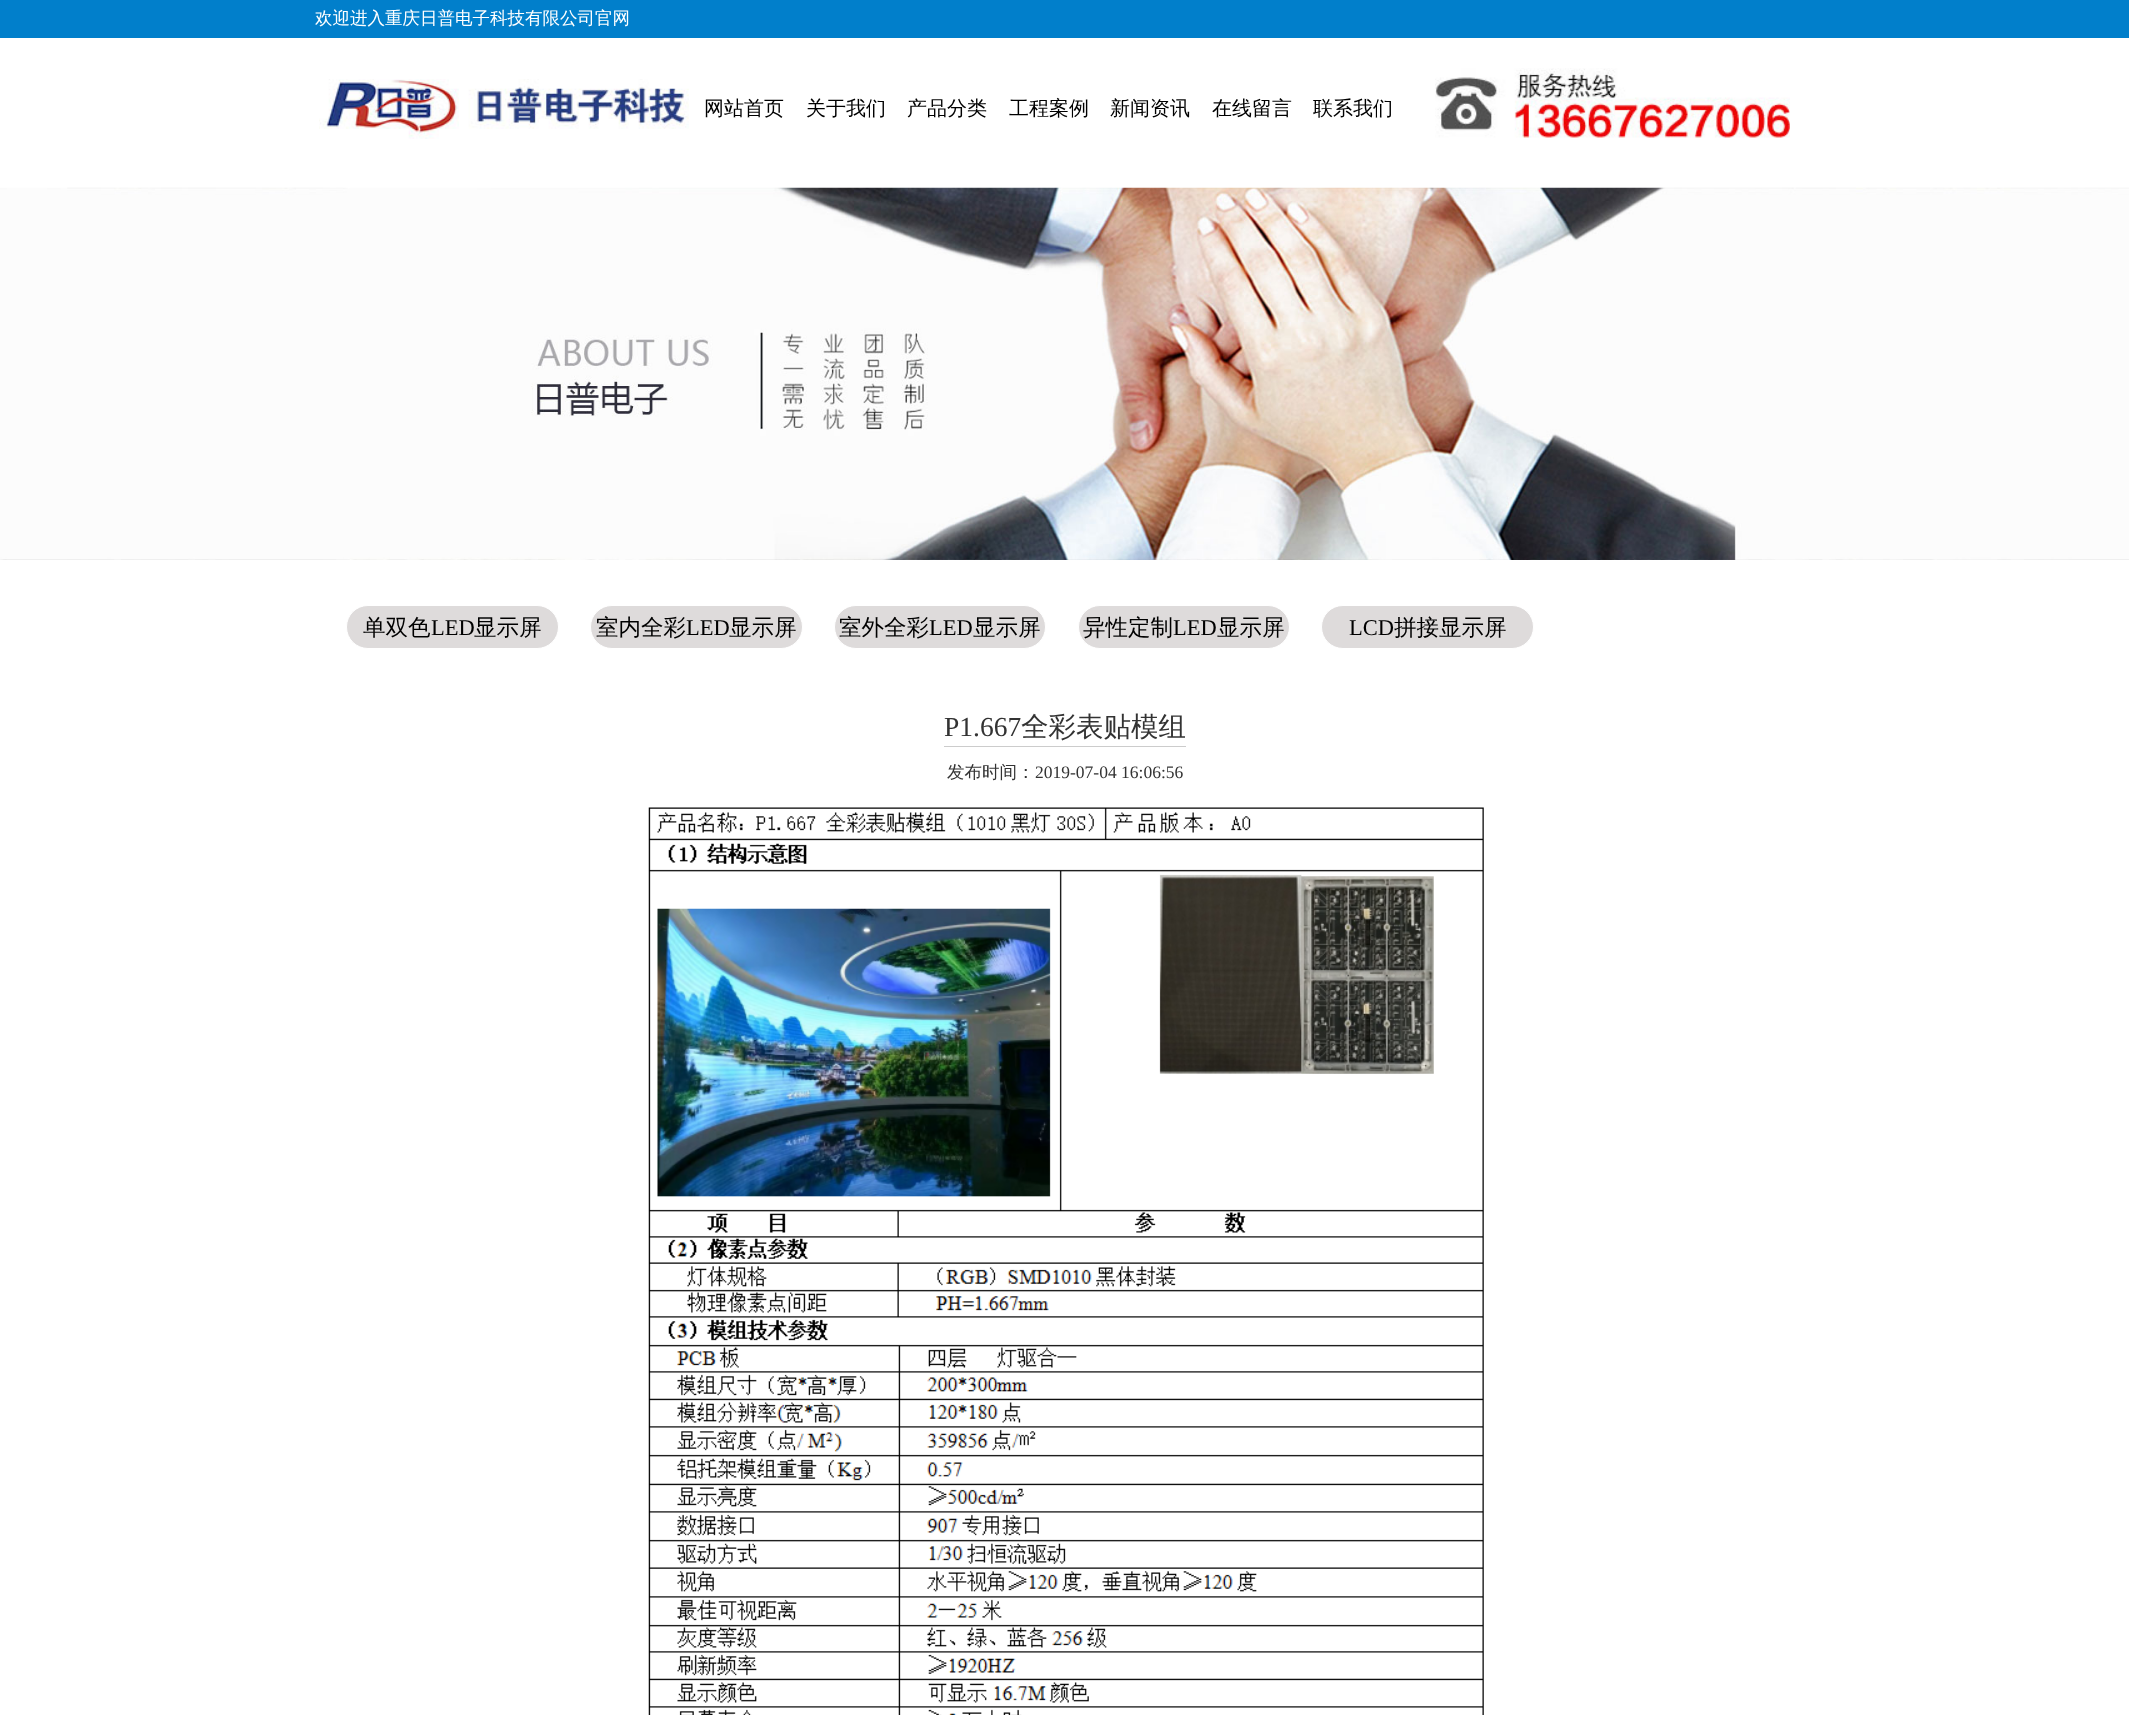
async function draw(canvas) {
	canvas.width = 2129;
	canvas.height = 1715;
	const c = canvas.getContext('2d');
	c.miterLimit = 4;
	c.fontKerning = 'normal';
	async function loadImage(src) {
		const img = new Image();
		img.src = src;
		await img.decode();
		return img;
	}

	c.fillStyle = '#fff';
	c.fillRect(0, 0, 2129, 1715);
	c.fillStyle = '#017fcb';
	c.fillRect(0, 0, 2129, 38);
	c.font = '500 17.5px WenQuanYi Zen Hei';
	c.fillStyle = '#fff';
	c.fillText('欢迎进入重庆日普电子科技有限公司官网', 315, 24);
	c.drawImage(await loadImage('img1.png'), 319, 79, 370, 60);
	c.font = '500 20px WenQuanYi Zen Hei';
	c.fillStyle = '#000';
	for (const [text, x, y] of [
		['网站首页', 704, 115],
		['关于我们', 806, 115],
		['产品分类', 907, 115],
		['工程案例', 1009, 115],
		['新闻资讯', 1110, 115],
		['在线留言', 1212, 115],
		['联系我们', 1313, 115],
	]) {
		c.fillText(text, x, y);
	}
	c.drawImage(await loadImage('img2.png'), 1435, 68, 355, 70);
	c.drawImage(await loadImage('img3.png'), 0, 187, 2129, 373);
	c.fillStyle = '#dedbdb';
	c.beginPath();
	c.roundRect(346.5, 605.5, 212, 43, 21.5);
	c.fill();
	c.strokeStyle = '#fff';
	c.stroke();
	c.font = '500 22.5px WenQuanYi Zen Hei';
	c.fillStyle = '#000';
	c.fillText('单双色', 363, 635);
	c.font = '22.5px Liberation Serif';
	c.fillText('LED', 431, 635);
	c.font = '500 22.5px WenQuanYi Zen Hei';
	c.fillText('显示屏', 474, 635);
	c.fillStyle = '#dedbdb';
	c.beginPath();
	c.roundRect(590.5, 605.5, 212, 43, 21.5);
	c.fill();
	c.stroke();
	c.fillStyle = '#000';
	c.fillText('室内全彩', 596, 635);
	c.font = '22.5px Liberation Serif';
	c.fillText('LED', 686, 635);
	c.font = '500 22.5px WenQuanYi Zen Hei';
	c.fillText('显示屏', 729, 635);
	c.fillStyle = '#dedbdb';
	c.beginPath();
	c.roundRect(834.5, 605.5, 211, 43, 21.5);
	c.fill();
	c.stroke();
	c.fillStyle = '#000';
	c.fillText('室外全彩', 839, 635);
	c.font = '22.5px Liberation Serif';
	c.fillText('LED', 929, 635);
	c.font = '500 22.5px WenQuanYi Zen Hei';
	c.fillText('显示屏', 973, 635);
	c.fillStyle = '#dedbdb';
	c.beginPath();
	c.roundRect(1078.5, 605.5, 211, 43, 21.5);
	c.fill();
	c.stroke();
	c.fillStyle = '#000';
	c.fillText('异性定制', 1083, 635);
	c.font = '22.5px Liberation Serif';
	c.fillText('LED', 1173, 635);
	c.font = '500 22.5px WenQuanYi Zen Hei';
	c.fillText('显示屏', 1217, 635);
	c.fillStyle = '#dedbdb';
	c.beginPath();
	c.roundRect(1321.5, 605.5, 212, 43, 21.5);
	c.fill();
	c.stroke();
	c.font = '22.5px Liberation Serif';
	c.fillStyle = '#000';
	c.fillText('LCD', 1349, 635);
	c.font = '500 22.5px WenQuanYi Zen Hei';
	c.fillText('拼接显示屏', 1394, 635);
	c.fillStyle = '#ccc';
	c.fillRect(944, 746, 242, 1);
	c.font = '27.5px Liberation Serif';
	c.fillStyle = '#333';
	c.fillText('P1.667', 944, 736);
	c.font = '500 27.5px WenQuanYi Zen Hei';
	c.fillText('全彩表贴模组', 1021, 736);
	c.font = '500 17.5px WenQuanYi Zen Hei';
	c.fillText('发布时间：', 947, 778);
	c.font = '17.5px Liberation Serif';
	c.fillText('2019-07-04 16:06:56', 1035, 778);
	c.drawImage(await loadImage('img4.png'), 648, 807, 836, 908);
}

draw(document.querySelector('canvas'));
